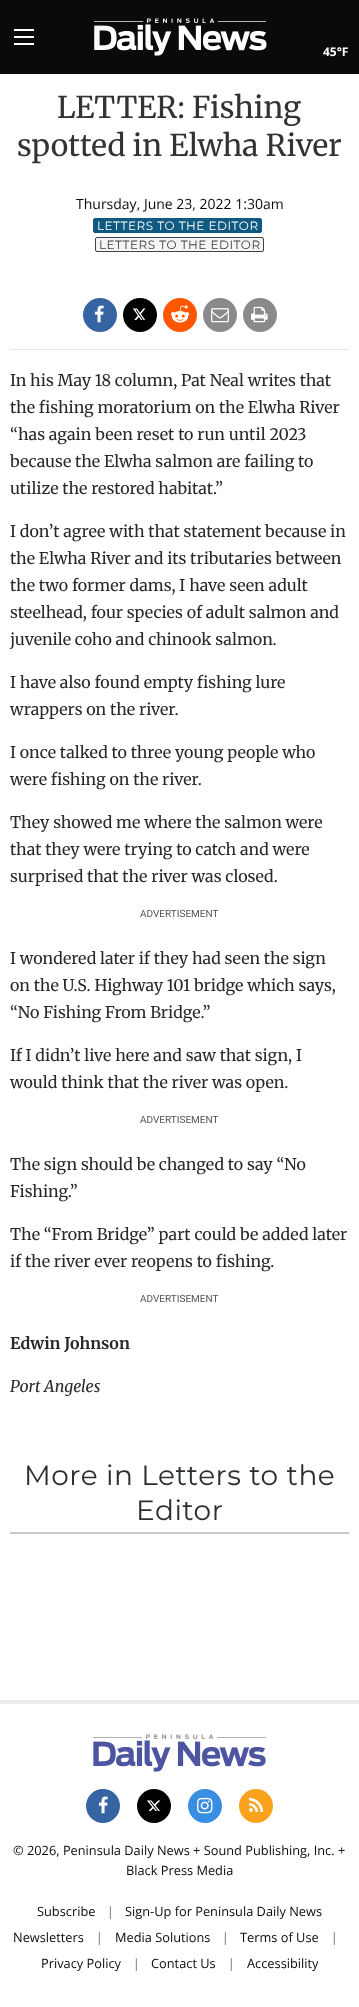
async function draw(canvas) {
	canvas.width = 359;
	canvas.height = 2007;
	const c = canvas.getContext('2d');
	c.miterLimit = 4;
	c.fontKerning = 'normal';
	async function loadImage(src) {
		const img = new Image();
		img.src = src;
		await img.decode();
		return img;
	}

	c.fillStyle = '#fff';
	c.fillRect(0, 0, 359, 2007);
	for (const [x, y, w, h, color] of [
		[0, 0, 359, 74, '#0a0a0a'],
		[14, 43, 20, 2, '#fefefe'],
		[14, 36, 20, 2, '#fefefe'],
		[14, 29, 20, 2, '#fefefe'],
	]) {
		c.fillStyle = color;
		c.fillRect(x, y, w, h);
	}
	c.drawImage(await loadImage('img1.png'), 94, 18, 173, 38);
	c.font = 'bold 12px Open Sans';
	c.fillText('45°F', 323, 56);
	c.font = '30px Merriweather';
	c.fillStyle = '#333';
	c.fillText('LETTER: Fishing', 57, 118);
	c.fillText('spotted in Elwha River', 17, 156);
	c.font = '14px Open Sans';
	c.fillStyle = '#0a0a0a';
	c.fillText('Thursday, June 23, 2022 1:30am', 76, 209);
	c.fillStyle = '#105981';
	c.beginPath();
	c.roundRect(93.5, 218.5, 168, 14, 1.5);
	c.fill();
	c.strokeStyle = '#105981';
	c.stroke();
	c.letterSpacing = '0.5px';
	c.font = '12px Montserrat';
	c.fillStyle = '#fefefe';
	c.fillText('LETTERS TO THE EDITOR', 97, 230);
	c.fillStyle = '#f5f5f5';
	c.beginPath();
	c.roundRect(95.5, 237.5, 168, 14, 1.5);
	c.fill();
	c.strokeStyle = '#3d4346';
	c.stroke();
	c.fillStyle = '#3d4346';
	c.fillText('LETTERS TO THE EDITOR', 99, 249);
	c.fillStyle = '#e6e6e6';
	c.fillRect(10, 349, 339, 1);
	c.fillStyle = '#3664a2';
	c.beginPath();
	c.arc(100, 315, 17, 0, 2 * Math.PI);
	c.fill();
	c.drawImage(await loadImage('img2.png'), 94, 305, 10, 18);
	c.fillStyle = '#000';
	c.beginPath();
	c.arc(140, 315, 17, 0, 2 * Math.PI);
	c.fill();
	c.drawImage(await loadImage('img3.png'), 132, 308, 14, 12);
	c.fillStyle = '#ff5700';
	c.beginPath();
	c.arc(180, 315, 17, 0, 2 * Math.PI);
	c.fill();
	c.drawImage(await loadImage('img4.png'), 171, 305, 18, 18);
	c.fillStyle = '#8a8a8a';
	c.beginPath();
	c.arc(220, 315, 17, 0, 2 * Math.PI);
	c.fill();
	c.drawImage(await loadImage('img5.png'), 211, 308, 18, 15);
	c.beginPath();
	c.arc(260, 315, 17, 0, 2 * Math.PI);
	c.fill();
	c.drawImage(await loadImage('img6.png'), 251, 306, 17, 17);
	c.letterSpacing = '0px';
	c.font = '16px Merriweather';
	c.fillStyle = '#292929';
	for (const [text, x, y] of [
		['In his May 18 column, Pat Neal writes that', 10, 386],
		['the fishing moratorium on the Elwha River', 10, 413],
		['“has again been reset to run until 2023', 10, 440],
		['because the Elwha salmon are failing to', 10, 467],
		['utilize the restored habitat.”', 10, 494],
		['I don’t agree with that statement because in', 10, 537],
		['the Elwha River and its tributaries between', 10, 564],
		['the two former dams, I have seen adult', 10, 591],
		['steelhead, four species of adult salmon and', 10, 618],
		['juvenile coho and chinook salmon.', 10, 645],
		['I have also found empty fishing lure', 10, 688],
		['wrappers on the river.', 10, 715],
		['I once talked to three young people who', 10, 758],
		['were fishing on the river.', 10, 785],
		['They showed me where the salmon were', 10, 828],
		['that they were trying to catch and were', 10, 855],
		['surprised that the river was closed.', 10, 882],
	]) {
		c.fillText(text, x, y);
	}
	c.font = '10px Roboto';
	c.fillStyle = '#545454';
	c.fillText('ADVERTISEMENT', 140, 917);
	c.font = '16px Merriweather';
	c.fillStyle = '#292929';
	for (const [text, x, y] of [
		['I wondered later if they had seen the sign', 10, 964],
		['on the U.S. Highway 101 bridge which says,', 10, 991],
		['“No Fishing From Bridge.”', 10, 1018],
		['If I didn’t live here and saw that sign, I', 10, 1061],
		['would think that the river was open.', 10, 1088],
	]) {
		c.fillText(text, x, y);
	}
	c.font = '10px Roboto';
	c.fillStyle = '#545454';
	c.fillText('ADVERTISEMENT', 140, 1123);
	c.font = '16px Merriweather';
	c.fillStyle = '#292929';
	for (const [text, x, y] of [
		['The sign should be changed to say “No', 10, 1170],
		['Fishing.”', 10, 1197],
		['The “From Bridge” part could be added later', 10, 1240],
		['if the river ever reopens to fishing.', 10, 1267],
	]) {
		c.fillText(text, x, y);
	}
	c.font = '10px Roboto';
	c.fillStyle = '#545454';
	c.fillText('ADVERTISEMENT', 140, 1302);
	c.font = 'bold 16px Merriweather';
	c.fillStyle = '#292929';
	c.fillText('Edwin Johnson', 10, 1349);
	c.font = 'italic 16px Merriweather';
	c.fillText('Port Angeles', 10, 1392);
	c.fillStyle = '#cacaca';
	c.fillRect(10, 1532, 339, 2);
	c.letterSpacing = '0.5px';
	c.font = '28px Montserrat';
	c.fillStyle = '#2b2f31';
	c.fillText('More in Letters to the', 24, 1485);
	c.fillText('Editor', 136, 1520);
	c.fillStyle = '#ebebeb';
	c.fillRect(0, 1700, 359, 4);
	c.drawImage(await loadImage('img7.png'), 93, 1734, 173, 38);
	c.fillStyle = '#3664a2';
	c.beginPath();
	c.arc(103, 1806, 17, 0, 2 * Math.PI);
	c.fill();
	c.drawImage(await loadImage('img2.png'), 98, 1796, 10, 18);
	c.fillStyle = '#000';
	c.beginPath();
	c.arc(154, 1806, 17, 0, 2 * Math.PI);
	c.fill();
	c.drawImage(await loadImage('img8.png'), 147, 1800, 14, 11);
	c.fillStyle = '#398ee2';
	c.beginPath();
	c.arc(205, 1806, 17, 0, 2 * Math.PI);
	c.fill();
	c.drawImage(await loadImage('img9.png'), 197, 1797, 16, 17);
	c.fillStyle = '#faa21b';
	c.beginPath();
	c.arc(256, 1806, 17, 0, 2 * Math.PI);
	c.fill();
	c.drawImage(await loadImage('img10.png'), 249, 1797, 15, 15);
	c.letterSpacing = '0px';
	c.font = '12.8px Open Sans';
	c.fillStyle = '#0a0a0a';
	for (const [text, x, y] of [
		['© 2026, Peninsula Daily News + Sound Publishing, Inc. +', 13, 1855],
		['Black Press Media', 126, 1875],
		['Subscribe', 37, 1916],
	]) {
		c.fillText(text, x, y);
	}
	c.font = '12.8px DejaVu Sans';
	c.fillStyle = '#8a8a8a';
	c.fillText('❘', 105, 1916);
	c.font = '12.8px Open Sans';
	c.fillStyle = '#0a0a0a';
	c.fillText('Sign-Up for Peninsula Daily News', 125, 1916);
	c.fillText('Newsletters', 13, 1942);
	c.font = '12.8px DejaVu Sans';
	c.fillStyle = '#8a8a8a';
	c.fillText('❘', 94, 1942);
	c.font = '12.8px Open Sans';
	c.fillStyle = '#0a0a0a';
	c.fillText('Media Solutions', 115, 1942);
	c.font = '12.8px DejaVu Sans';
	c.fillStyle = '#8a8a8a';
	c.fillText('❘', 220, 1942);
	c.font = '12.8px Open Sans';
	c.fillStyle = '#0a0a0a';
	c.fillText('Terms of Use', 240, 1942);
	c.font = '12.8px DejaVu Sans';
	c.fillStyle = '#8a8a8a';
	c.fillText('❘', 329, 1942);
	c.font = '12.8px Open Sans';
	c.fillStyle = '#0a0a0a';
	c.fillText('Privacy Policy', 41, 1968);
	c.font = '12.8px DejaVu Sans';
	c.fillStyle = '#8a8a8a';
	c.fillText('❘', 131, 1968);
	c.font = '12.8px Open Sans';
	c.fillStyle = '#0a0a0a';
	c.fillText('Contact Us', 151, 1968);
	c.font = '12.8px DejaVu Sans';
	c.fillStyle = '#8a8a8a';
	c.fillText('❘', 226, 1968);
	c.font = '12.8px Open Sans';
	c.fillStyle = '#0a0a0a';
	c.fillText('Accessibility', 247, 1968);
}

draw(document.querySelector('canvas'));
